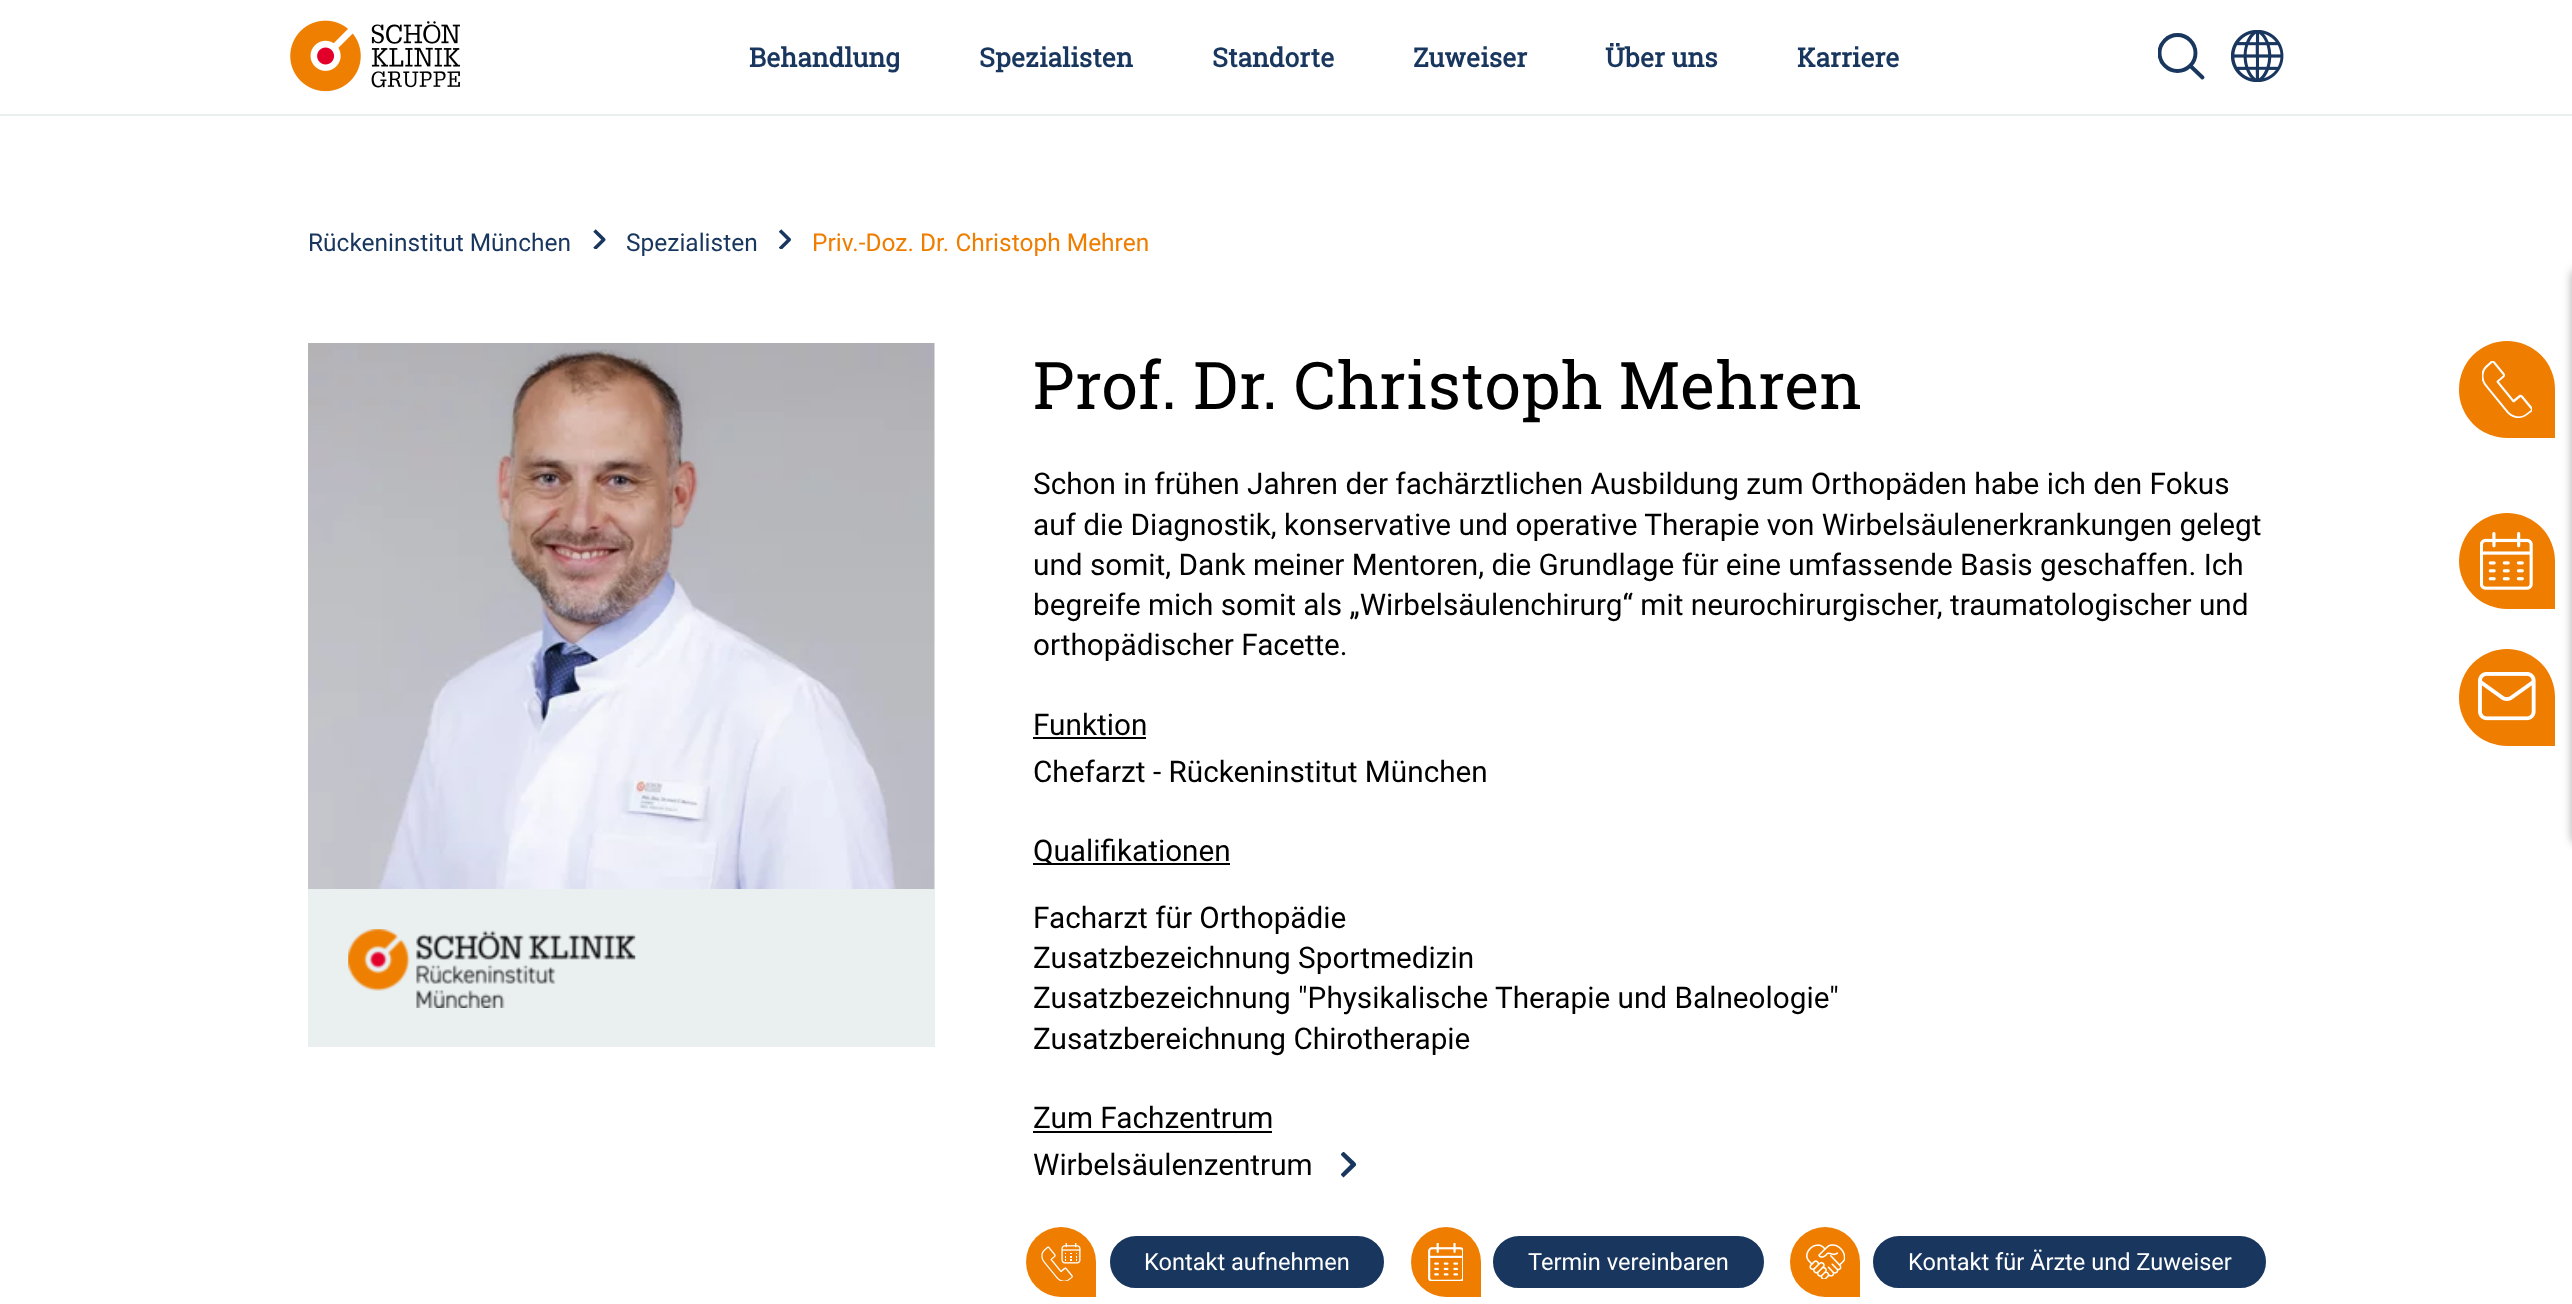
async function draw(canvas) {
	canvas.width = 2572;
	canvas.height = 1304;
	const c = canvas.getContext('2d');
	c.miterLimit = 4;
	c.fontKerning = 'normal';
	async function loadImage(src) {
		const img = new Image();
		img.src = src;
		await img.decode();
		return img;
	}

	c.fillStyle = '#fff';
	c.fillRect(0, 0, 2572, 1304);
	c.fillStyle = '#eaeff0';
	c.fillRect(0, 114, 2572, 2);
	c.drawImage(await loadImage('img1.png'), 290, 20, 170, 72);
	c.font = 'bold 26.25px Roboto Slab';
	c.fillStyle = '#18365e';
	for (const [text, x, y] of [
		['Behandlung', 749, 67],
		['Spezialisten', 979, 67],
		['Standorte', 1212, 67],
		['Zuweiser', 1413, 67],
		['Über uns', 1605, 67],
		['Karriere', 1797, 67],
	]) {
		c.fillText(text, x, y);
	}
	c.save();
	c.beginPath();
	c.rect(2158, 33, 47, 48);
	c.clip();
	c.beginPath();
	c.arc(2177.5, 53, 18, 0, 2 * Math.PI);
	c.strokeStyle = '#18365e';
	c.lineWidth = 3.9;
	c.stroke();
	c.restore();
	c.beginPath();
	c.moveTo(2190.5, 66);
	c.lineTo(2202.5, 77.5);
	c.strokeStyle = '#18365e';
	c.lineWidth = 3.9;
	c.lineCap = 'round';
	c.stroke();
	c.drawImage(await loadImage('img2.png'), 2231, 30, 53, 52);
	c.font = '24.5px Roboto';
	c.fillText('Rückeninstitut München', 308, 251);
	c.drawImage(await loadImage('img3.png'), 593, 229, 13, 20);
	c.fillText('Spezialisten', 626, 251);
	c.drawImage(await loadImage('img4.png'), 779, 229, 12, 20);
	c.fillStyle = '#ef7d00';
	c.fillText('Priv.-Doz. Dr. Christoph Mehren', 812, 251);
	c.drawImage(await loadImage('img5.png'), 308, 343, 627, 546);
	c.fillStyle = '#eaeff0';
	c.fillRect(308, 889, 627, 158);
	c.drawImage(await loadImage('img6.png'), 348, 929, 288, 79);
	c.font = '65.6px Roboto Slab';
	c.fillStyle = '#000';
	c.fillText('Prof. Dr. Christoph Mehren', 1033, 409);
	c.font = '29.75px Roboto';
	for (const [text, x, y] of [
		['Schon in frühen Jahren der fachärztlichen Ausbildung zum Orthopäden habe ich den Fokus', 1033, 494],
		['auf die Diagnostik, konservative und operative Therapie von Wirbelsäulenerkrankungen gelegt', 1033, 535],
		['und somit, Dank meiner Mentoren, die Grundlage für eine umfassende Basis geschaffen. Ich', 1033, 575],
		['begreife mich somit als „Wirbelsäulenchirurg“ mit neurochirurgischer, traumatologischer und', 1033, 615],
		['orthopädischer Facette.', 1033, 655],
		['Funktion', 1033, 735],
	]) {
		c.fillText(text, x, y);
	}
	c.fillRect(1033, 737, 113, 2);
	c.fillText('Chefarzt - Rückeninstitut München', 1033, 782);
	c.fillRect(1033, 863, 197, 2);
	for (const [text, x, y] of [
		['Qualifikationen', 1033, 861],
		['Facharzt für Orthopädie', 1033, 928],
		['Zusatzbezeichnung Sportmedizin', 1033, 968],
		['Zusatzbezeichnung "Physikalische Therapie und Balneologie"', 1033, 1008],
		['Zusatzbereichnung Chirotherapie', 1033, 1049],
		['Zum Fachzentrum', 1033, 1128],
	]) {
		c.fillText(text, x, y);
	}
	c.fillRect(1033, 1131, 239, 2);
	c.fillText('Wirbelsäulenzentrum', 1033, 1175);
	c.save();
	c.beginPath();
	c.rect(1341, 1152, 15, 26);
	c.clip();
	c.fillStyle = '#18365e';
	c.beginPath();
	c.moveTo(1343.5, 1177.5);
	c.lineTo(1340.5, 1174.5);
	c.lineTo(1350.5, 1164.5);
	c.lineTo(1340.5, 1154.5);
	c.lineTo(1343.5, 1151.5);
	c.lineTo(1351.5, 1159);
	c.bezierCurveTo(1352.5, 1160.5, 1358, 1163.5, 1355.5, 1166);
	c.closePath();
	c.fill();
	c.restore();
	c.fillStyle = '#ef7d00';
	c.beginPath();
	c.roundRect(1026, 1227, 70, 70, [35, 35, 0, 35]);
	c.fill();
	c.drawImage(await loadImage('img7.png'), 1041, 1243, 40, 38);
	c.fillStyle = '#18365e';
	c.beginPath();
	c.roundRect(1111, 1237, 272, 50, 25);
	c.fill();
	c.lineWidth = 2;
	c.stroke();
	c.font = '23.6px Roboto';
	c.fillStyle = '#fff';
	c.fillText('Kontakt aufnehmen', 1144, 1270);
	c.fillStyle = '#ef7d00';
	c.beginPath();
	c.roundRect(1411, 1227, 70, 70, [35, 35, 0, 35]);
	c.fill();
	c.drawImage(await loadImage('img8.png'), 1428, 1243, 35, 38);
	c.fillStyle = '#18365e';
	c.beginPath();
	c.roundRect(1494, 1237, 269, 50, 25);
	c.fill();
	c.stroke();
	c.fillStyle = '#fff';
	c.fillText('Termin vereinbaren', 1528, 1270);
	c.fillStyle = '#ef7d00';
	c.beginPath();
	c.roundRect(1790, 1227, 70, 70, [35, 35, 0, 35]);
	c.fill();
	c.drawImage(await loadImage('img9.png'), 1806, 1244, 39, 35);
	c.fillStyle = '#18365e';
	c.beginPath();
	c.roundRect(1874, 1237, 391, 50, 25);
	c.fill();
	c.stroke();
	c.fillStyle = '#fff';
	c.fillText('Kontakt für Ärzte und Zuweiser', 1908, 1270);
	c.fillStyle = '#b7b7b7';
	c.filter = 'blur(4.5px)';
	c.beginPath();
	c.roundRect(2571, 268, 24, 577, 9);
	c.fill();
	c.filter = 'none';
	c.fillStyle = '#ef7d00';
	c.beginPath();
	c.roundRect(2459, 341, 96, 97, [48, 48, 0, 48]);
	c.fill();
	c.drawImage(await loadImage('img10.png'), 2482, 361, 50, 57);
	c.beginPath();
	c.roundRect(2459, 513, 96, 96, [48, 48, 0, 48]);
	c.fill();
	c.drawImage(await loadImage('img11.png'), 2480, 532, 53, 58);
	c.beginPath();
	c.roundRect(2459, 649, 96, 97, [48, 48, 0, 48]);
	c.fill();
	c.drawImage(await loadImage('img12.png'), 2478, 672, 58, 49);
}

draw(document.querySelector('canvas'));
